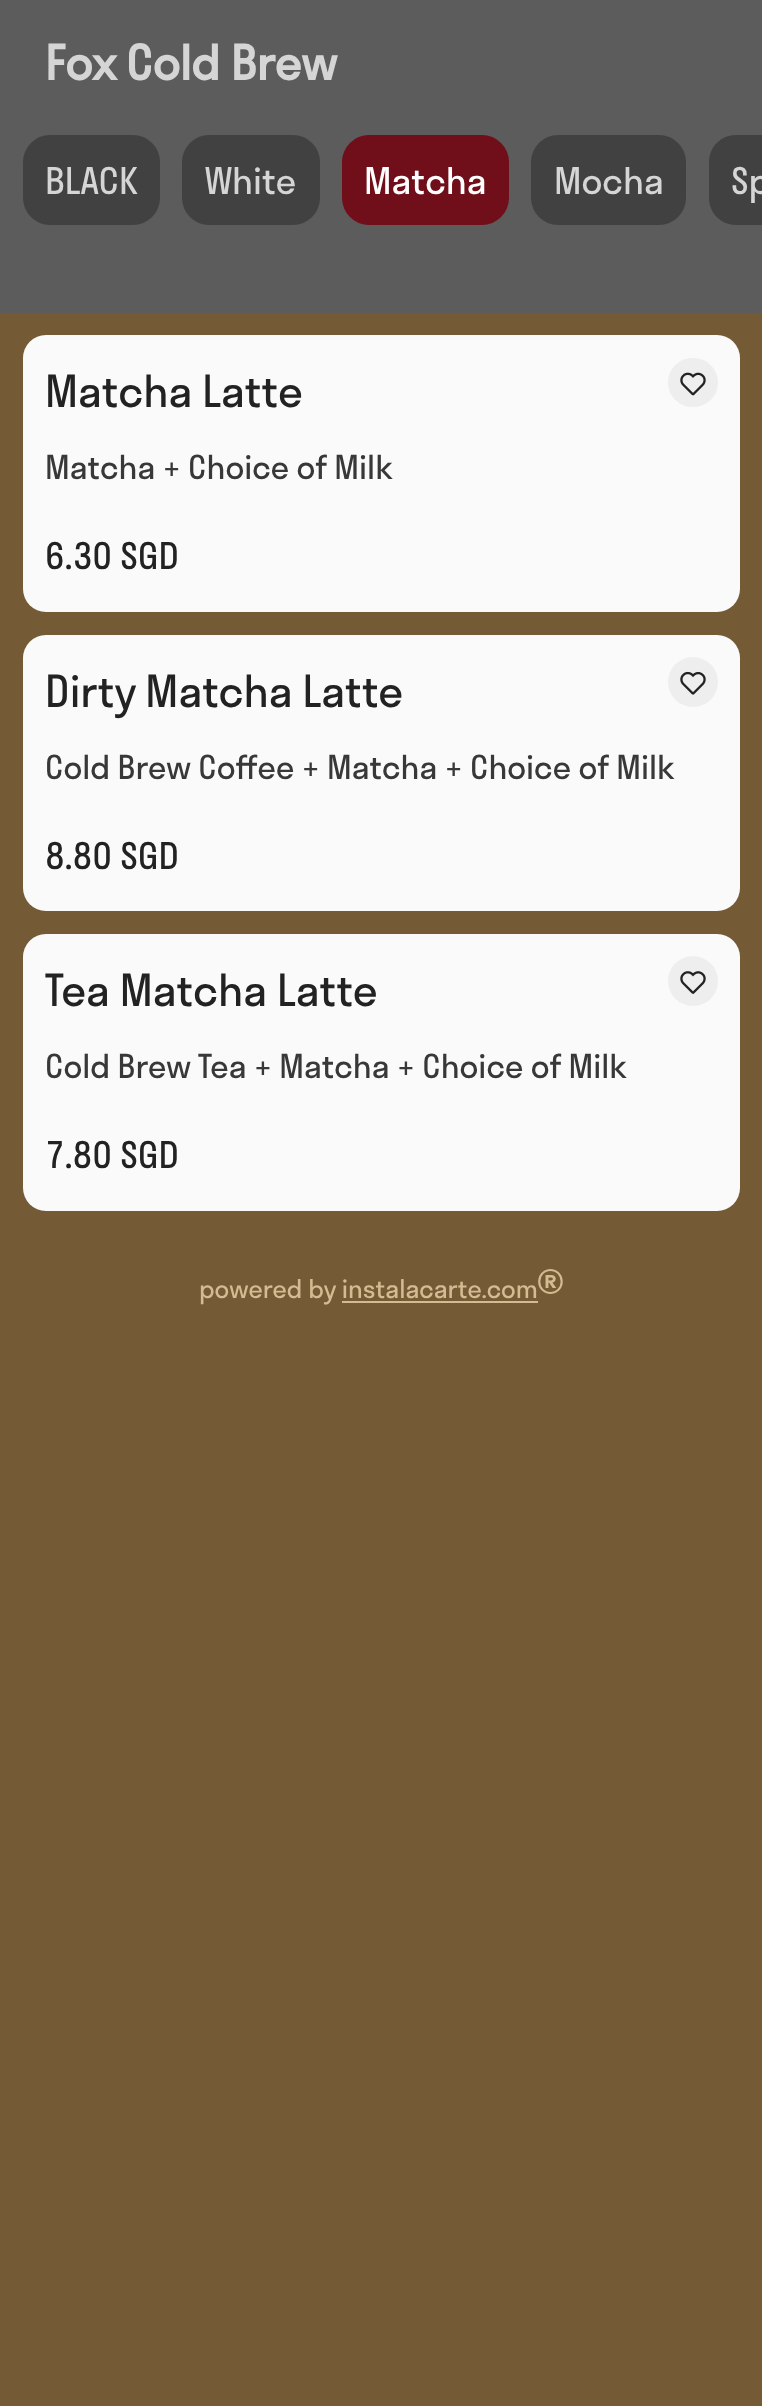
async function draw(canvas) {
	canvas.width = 762;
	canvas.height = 2406;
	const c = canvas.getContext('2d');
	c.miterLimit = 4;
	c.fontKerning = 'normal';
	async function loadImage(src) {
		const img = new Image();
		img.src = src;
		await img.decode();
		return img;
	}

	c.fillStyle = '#745b36';
	c.fillRect(0, 0, 762, 2406);
	c.fillStyle = '#5c5c5c';
	c.fillRect(0, 0, 762, 313);
	c.font = 'bold 46.75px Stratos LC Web';
	c.fillStyle = '#d5d5d5';
	c.fillText('Fox Cold Brew', 45, 80);
	c.fillStyle = '#414141';
	c.beginPath();
	c.roundRect(23, 135, 137, 90, 27);
	c.fill();
	c.font = '36px Stratos LC Web';
	c.fillStyle = '#d5d5d5';
	c.fillText('BLACK', 45, 194);
	c.fillStyle = '#414141';
	c.beginPath();
	c.roundRect(182, 135, 138, 90, 27);
	c.fill();
	c.fillStyle = '#d5d5d5';
	c.fillText('White', 205, 194);
	c.fillStyle = '#700e19';
	c.beginPath();
	c.roundRect(342, 135, 167, 90, 27);
	c.fill();
	c.fillStyle = '#fff';
	c.fillText('Matcha', 364, 194);
	c.fillStyle = '#414141';
	c.beginPath();
	c.roundRect(531, 135, 155, 90, 27);
	c.fill();
	c.fillStyle = '#d5d5d5';
	c.fillText('Mocha', 554, 194);
	c.fillStyle = '#414141';
	c.beginPath();
	c.moveTo(736, 135);
	c.lineTo(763, 135);
	c.lineTo(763, 225);
	c.lineTo(736, 225);
	c.bezierCurveTo(721, 225, 709, 213, 709, 198);
	c.lineTo(709, 162);
	c.bezierCurveTo(709, 147, 721, 135, 736, 135);
	c.closePath();
	c.fill();
	c.fillStyle = '#d5d5d5';
	c.fillText('Sp', 731, 194);
	c.fillStyle = '#fafafa';
	c.beginPath();
	c.roundRect(23, 335, 717, 277, 23);
	c.fill();
	c.font = '43.25px Stratos LC Web';
	c.fillStyle = '#222';
	c.fillText('Matcha Latte', 45, 407);
	c.fillStyle = '#eee';
	c.beginPath();
	c.roundRect(668, 358, 50, 49, 24.5);
	c.fill();
	c.drawImage(await loadImage('img1.png'), 680, 372, 26, 24);
	c.font = '32.4px Stratos LC Web';
	c.fillStyle = '#383838';
	c.fillText('Matcha + Choice of Milk', 45, 479);
	c.font = '36px Stratos LC Web';
	c.fillStyle = '#222';
	c.fillText('6.30 SGD', 45, 569);
	c.fillStyle = '#fafafa';
	c.beginPath();
	c.roundRect(23, 635, 717, 276, 23);
	c.fill();
	c.font = '43.25px Stratos LC Web';
	c.fillStyle = '#222';
	c.fillText('Dirty Matcha Latte', 45, 707);
	c.fillStyle = '#eee';
	c.beginPath();
	c.arc(693, 682, 25, 0, 2 * Math.PI);
	c.fill();
	c.drawImage(await loadImage('img2.png'), 680, 671, 26, 24);
	c.font = '32.4px Stratos LC Web';
	c.fillStyle = '#383838';
	c.fillText('Cold Brew Coffee + Matcha + Choice of Milk', 45, 779);
	c.font = '36px Stratos LC Web';
	c.fillStyle = '#222';
	c.fillText('8.80 SGD', 45, 869);
	c.fillStyle = '#fafafa';
	c.beginPath();
	c.roundRect(23, 934, 717, 277, 23);
	c.fill();
	c.font = '43.25px Stratos LC Web';
	c.fillStyle = '#222';
	c.fillText('Tea Matcha Latte', 45, 1006);
	c.fillStyle = '#eee';
	c.beginPath();
	c.arc(693, 981, 25, 0, 2 * Math.PI);
	c.fill();
	c.drawImage(await loadImage('img3.png'), 680, 971, 26, 23);
	c.font = '32.4px Stratos LC Web';
	c.fillStyle = '#383838';
	c.fillText('Cold Brew Tea + Matcha + Choice of Milk', 45, 1078);
	c.font = '36px Stratos LC Web';
	c.fillStyle = '#222';
	c.fillText('7.80 SGD', 45, 1168);
	c.font = '25.25px Stratos LC Web';
	c.fillStyle = '#d3bc91';
	c.fillText('powered by instalacarte.com', 199, 1298);
	c.fillRect(342, 1301, 196, 2);
	c.font = '54px Stratos LC Web';
	c.fillText('®', 537, 1310);
}

draw(document.querySelector('canvas'));
